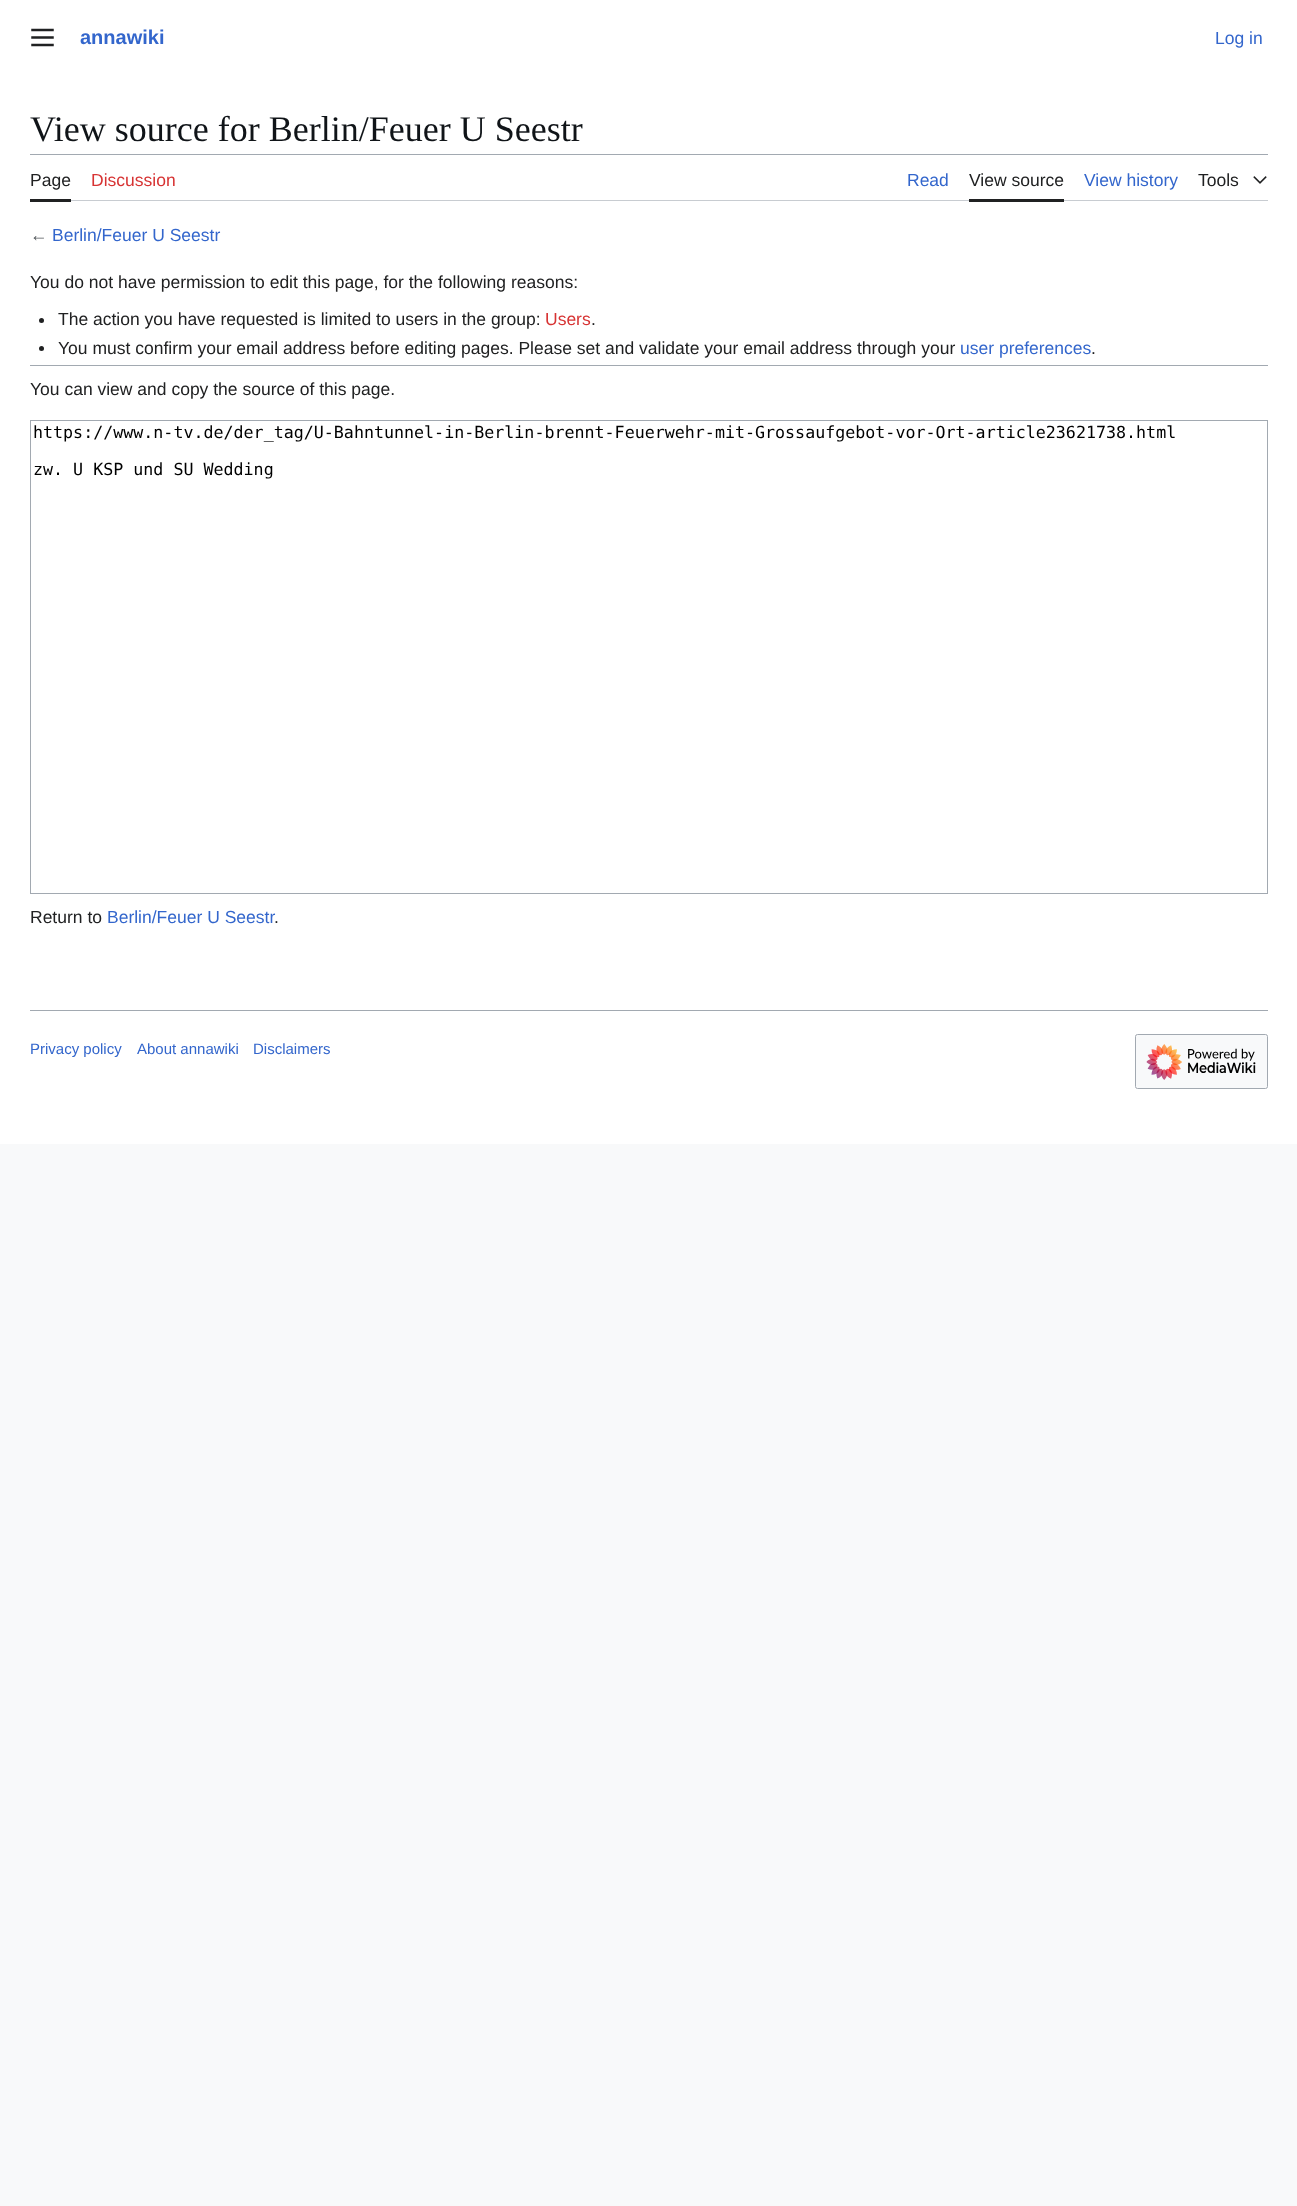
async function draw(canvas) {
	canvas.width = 1297;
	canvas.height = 2206;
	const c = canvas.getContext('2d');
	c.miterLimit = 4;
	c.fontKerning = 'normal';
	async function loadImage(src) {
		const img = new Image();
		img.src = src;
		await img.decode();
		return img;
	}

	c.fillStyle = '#f8f9fa';
	c.fillRect(0, 0, 1297, 2206);
	c.fillStyle = '#fff';
	c.fillRect(0, 0, 1297, 1144);
	c.drawImage(await loadImage('img1.png'), 31, 28, 23, 19);
	c.font = 'bold 20px Liberation Sans';
	c.fillStyle = '#36c';
	c.fillText('annawiki', 80, 44);
	c.font = '17.5px Liberation Sans';
	c.fillText('Log in', 1215, 44);
	c.font = '36px Liberation Serif';
	c.fillStyle = '#101418';
	c.fillText('View source for Berlin/Feuer U Seestr', 30, 141);
	c.fillStyle = '#a2a9b1';
	c.fillRect(30, 154, 1238, 1);
	c.fillStyle = '#c8ccd1';
	c.beginPath();
	c.moveTo(30, 200);
	c.lineTo(30, 201);
	c.lineTo(1268, 201);
	c.lineTo(1268, 156);
	c.lineTo(1268, 200);
	c.closePath();
	c.fill();
	c.fillStyle = '#202122';
	c.fillRect(30, 199, 41, 3);
	c.font = '17.5px Liberation Sans';
	c.fillText('Page', 30, 186);
	c.fillStyle = '#d73333';
	c.fillText('Discussion', 91, 186);
	c.fillStyle = '#36c';
	c.fillText('Read', 907, 186);
	c.fillStyle = '#202122';
	c.fillRect(969, 199, 95, 3);
	c.fillText('View source', 969, 186);
	c.fillStyle = '#36c';
	c.fillText('View history', 1084, 186);
	c.fillStyle = '#202122';
	c.fillText('Tools', 1198, 186);
	c.drawImage(await loadImage('img2.png'), 1253, 176, 14, 8);
	c.fillStyle = '#54595d';
	c.fillText('←', 30, 241);
	c.fillStyle = '#36c';
	c.fillText('Berlin/Feuer U Seestr', 52, 241);
	c.fillStyle = '#202122';
	c.fillText('You do not have permission to edit this page, for the following reasons:', 30, 288);
	c.beginPath();
	c.arc(41.5, 320.5, 2.5, 0, 2 * Math.PI);
	c.fill();
	c.fillText('The action you have requested is limited to users in the group:', 58, 325);
	c.fillStyle = '#d73333';
	c.fillText('Users', 545, 325);
	c.fillStyle = '#202122';
	c.fillText('.', 591, 325);
	c.beginPath();
	c.arc(41.5, 348.5, 2.5, 0, 2 * Math.PI);
	c.fill();
	c.fillText('You must confirm your email address before editing pages. Please set and validate your email address through your', 58, 354);
	c.fillStyle = '#36c';
	c.fillText('user preferences', 960, 354);
	c.fillStyle = '#202122';
	c.fillText('.', 1091, 354);
	c.fillStyle = '#a2a9b1';
	c.fillRect(30, 365, 1238, 1);
	c.fillStyle = '#202122';
	c.fillText('You can view and copy the source of this page.', 30, 395);
	c.strokeStyle = '#a2a9b1';
	c.strokeRect(30.5, 420.5, 1237, 473);
	c.font = '16.67px DejaVu Sans Mono';
	c.fillStyle = '#000';
	c.fillText('https://www.n-tv.de/der_tag/U-Bahntunnel-in-Berlin-brennt-Feuerwehr-mit-Grossaufgebot-vor-Ort-article23621738.html', 33, 438);
	c.fillText('zw. U KSP und SU Wedding', 33, 475);
	c.font = '17.5px Liberation Sans';
	c.fillStyle = '#202122';
	c.fillText('Return to', 30, 923);
	c.fillStyle = '#36c';
	c.fillText('Berlin/Feuer U Seestr', 107, 923);
	c.fillStyle = '#202122';
	c.fillText('.', 274, 923);
	c.fillStyle = '#a2a9b1';
	c.fillRect(30, 1010, 1238, 1);
	c.font = '15px Liberation Sans';
	c.fillStyle = '#36c';
	for (const [text, x, y] of [
		['Privacy policy', 30, 1054],
		['About annawiki', 137, 1054],
		['Disclaimers', 253, 1054],
	]) {
		c.fillText(text, x, y);
	}
	c.fillStyle = '#f8f9fa';
	c.beginPath();
	c.roundRect(1135.5, 1034.5, 132, 54, 2);
	c.fill();
	c.stroke();
	c.drawImage(await loadImage('img3.png'), 1146, 1044, 110, 36);
}

draw(document.querySelector('canvas'));
